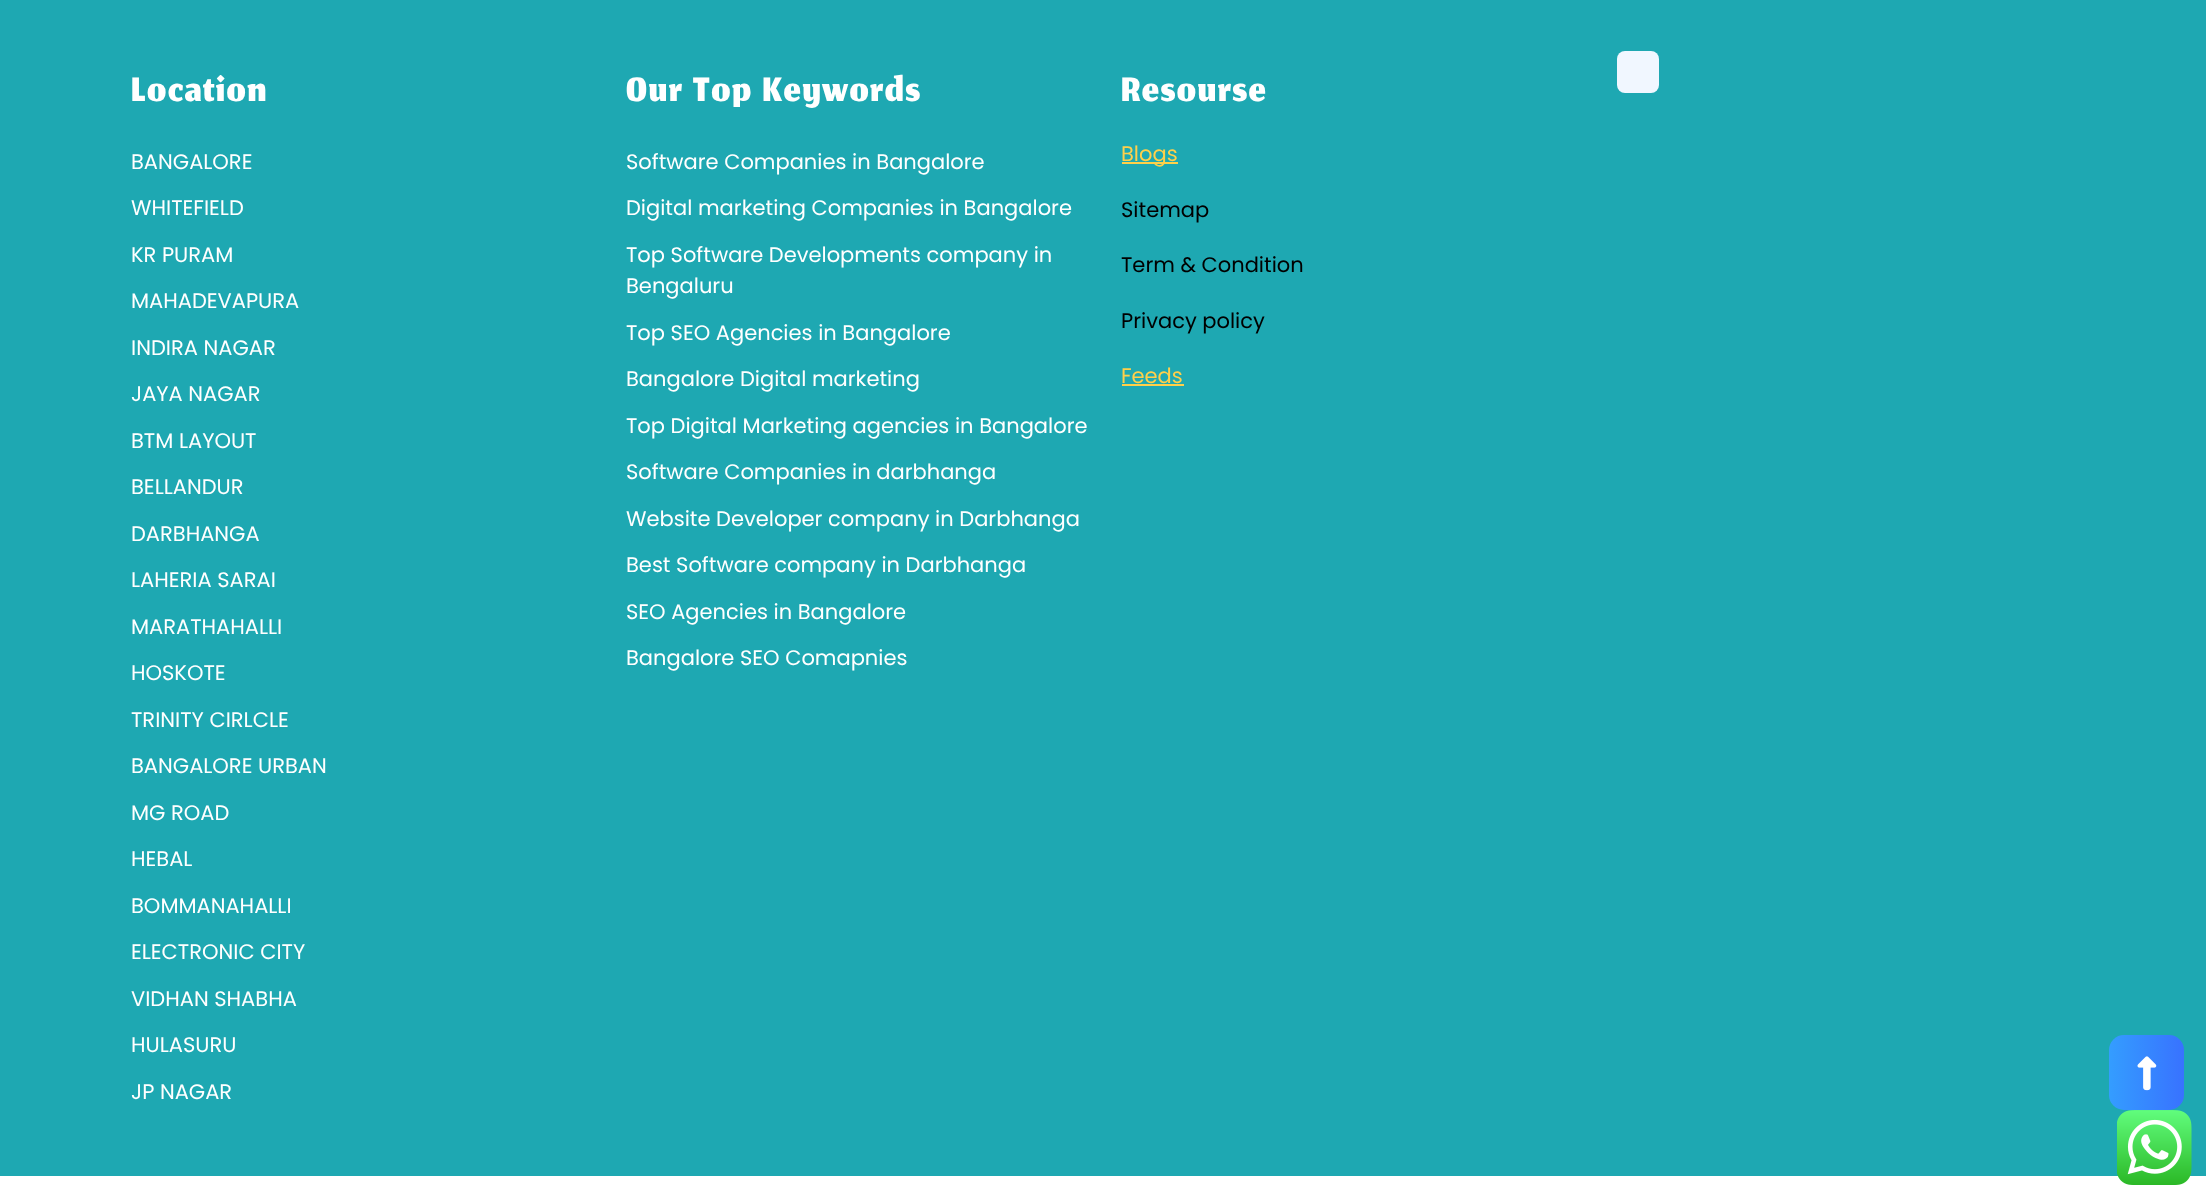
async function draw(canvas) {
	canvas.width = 2206;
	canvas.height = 1200;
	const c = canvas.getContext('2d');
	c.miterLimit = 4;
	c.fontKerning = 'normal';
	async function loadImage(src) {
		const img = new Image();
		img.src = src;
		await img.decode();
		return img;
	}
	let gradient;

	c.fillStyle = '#fff';
	c.fillRect(0, 0, 2206, 1200);
	c.fillStyle = '#1ea8b2';
	c.fillRect(0, 0, 2206, 1176);
	c.letterSpacing = '1.5px';
	c.font = '60px Jomhuria';
	c.fillStyle = '#fff';
	c.fillText('Location', 131, 101);
	c.letterSpacing = '0px';
	c.font = '21px Poppins';
	for (const [text, x, y] of [
		['BANGALORE', 131, 169],
		['WHITEFIELD', 131, 215],
		['KR PURAM', 131, 262],
		['MAHADEVAPURA', 131, 308],
		['INDIRA NAGAR', 131, 355],
		['JAYA NAGAR', 131, 401],
		['BTM LAYOUT', 131, 448],
		['BELLANDUR', 131, 494],
		['DARBHANGA', 131, 541],
		['LAHERIA SARAI', 131, 587],
		['MARATHAHALLI', 131, 634],
		['HOSKOTE', 131, 680],
		['TRINITY CIRLCLE', 131, 727],
		['BANGALORE URBAN', 131, 773],
		['MG ROAD', 131, 820],
		['HEBAL', 131, 866],
		['BOMMANAHALLI', 131, 913],
		['ELECTRONIC CITY', 131, 959],
		['VIDHAN SHABHA', 131, 1006],
		['HULASURU', 131, 1052],
		['JP NAGAR', 131, 1099],
	]) {
		c.fillText(text, x, y);
	}
	c.letterSpacing = '1.5px';
	c.font = '60px Jomhuria';
	c.fillText('Our Top Keywords', 626, 101);
	c.letterSpacing = '0px';
	c.font = '21px Poppins';
	for (const [text, x, y] of [
		['Software Companies in Bangalore', 626, 169],
		['Digital marketing Companies in Bangalore', 626, 215],
		['Top Software Developments company in', 626, 262],
		['Bengaluru', 626, 293],
		['Top SEO Agencies in Bangalore', 626, 340],
		['Bangalore Digital marketing', 626, 386],
		['Top Digital Marketing agencies in Bangalore', 626, 433],
		['Software Companies in darbhanga', 626, 479],
		['Website Developer company in Darbhanga', 626, 526],
		['Best Software company in Darbhanga', 626, 572],
		['SEO Agencies in Bangalore', 626, 619],
		['Bangalore SEO Comapnies', 626, 665],
	]) {
		c.fillText(text, x, y);
	}
	c.letterSpacing = '1.5px';
	c.font = '60px Jomhuria';
	c.fillText('Resourse', 1121, 101);
	c.fillStyle = '#ffd04a';
	c.fillRect(1122, 162, 56, 2);
	c.letterSpacing = '0px';
	c.font = '21px Poppins';
	c.fillText('Blogs', 1121, 161);
	c.fillStyle = '#000';
	for (const [text, x, y] of [
		['Sitemap', 1121, 217],
		['Term & Condition', 1121, 272],
		['Privacy policy', 1121, 328],
	]) {
		c.fillText(text, x, y);
	}
	c.fillStyle = '#ffd04a';
	c.fillText('Feeds', 1121, 383);
	c.fillRect(1122, 384, 62, 2);
	c.fillStyle = '#f1f7ff';
	c.beginPath();
	c.roundRect(1617, 51, 42, 42, 8);
	c.fill();
	gradient = c.createLinearGradient(2109, 1073, 2184, 1073);
	gradient.addColorStop(0, '#349dff');
	gradient.addColorStop(1, '#3872ff');
	c.fillStyle = gradient;
	c.beginPath();
	c.roundRect(2109, 1035, 75, 75, 15);
	c.fill();
	c.drawImage(await loadImage('img1.png'), 2137, 1056, 20, 35);
	c.drawImage(await loadImage('img2.png'), 2117, 1110, 75, 75);
}

draw(document.querySelector('canvas'));
